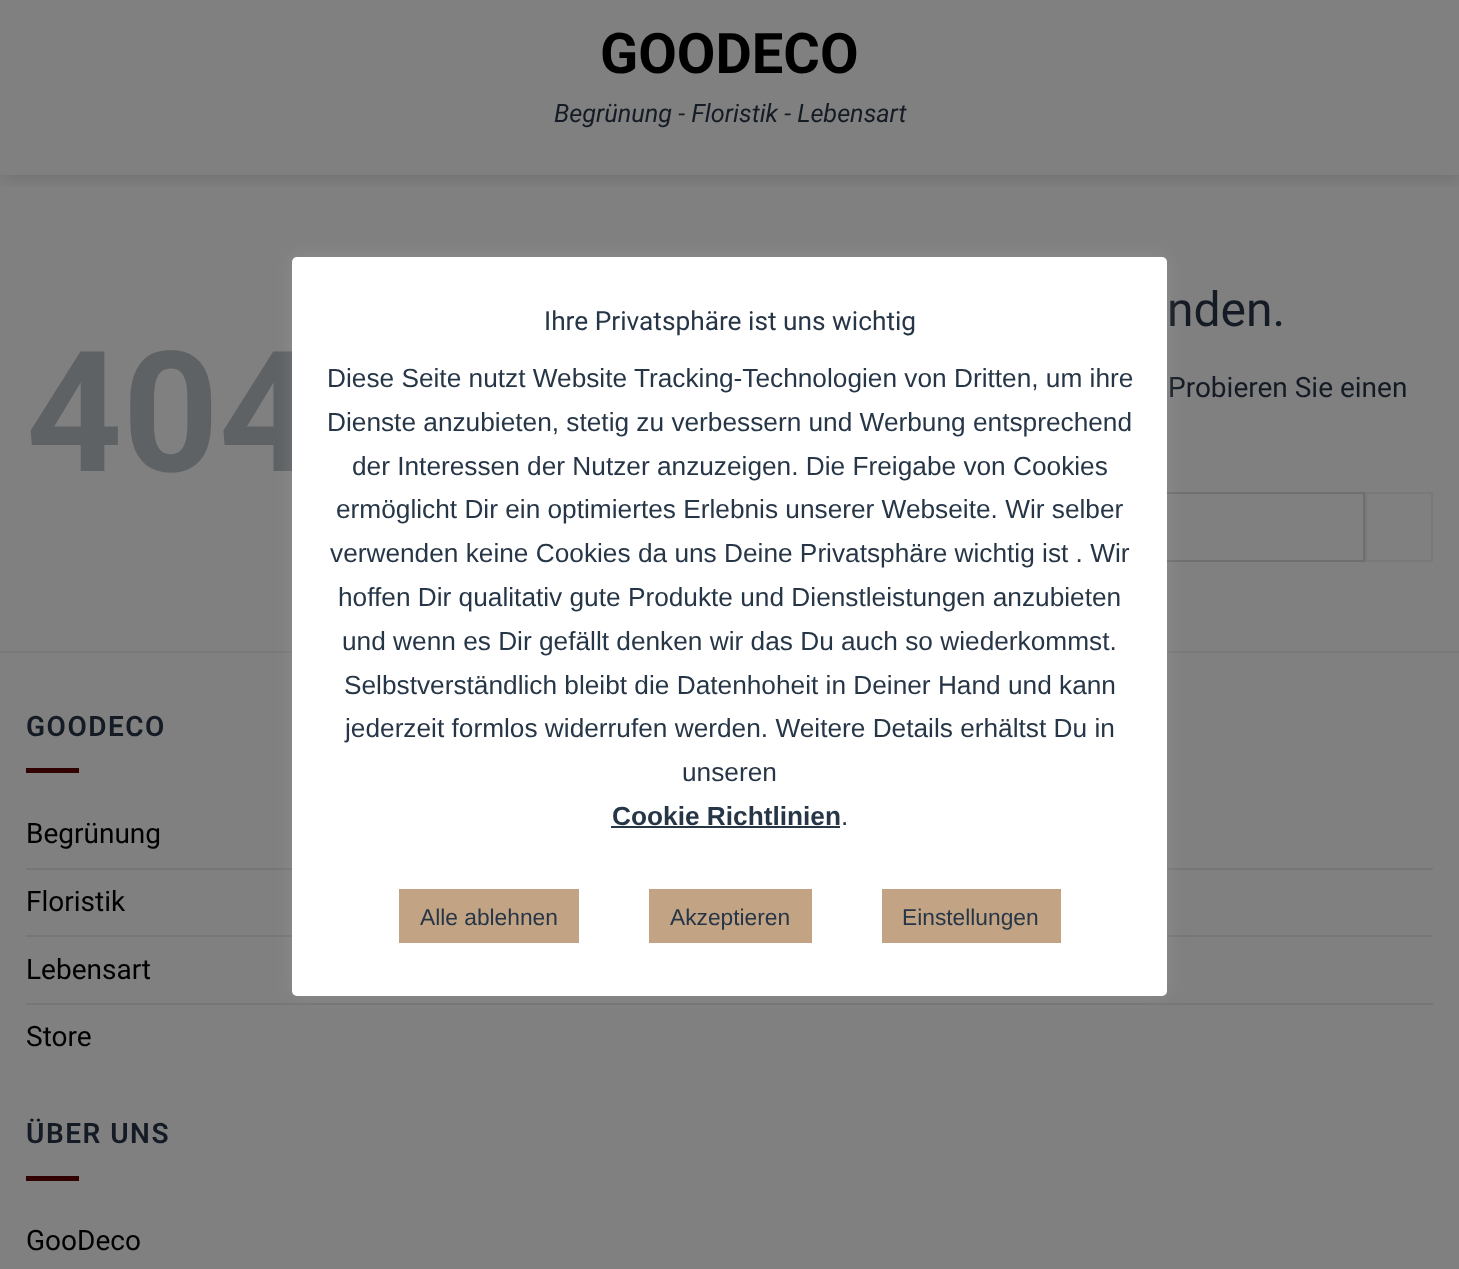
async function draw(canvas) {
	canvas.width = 1459;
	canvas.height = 1269;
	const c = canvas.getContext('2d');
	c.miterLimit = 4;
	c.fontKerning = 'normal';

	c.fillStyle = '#808080';
	c.fillRect(0, 0, 1459, 1269);
	c.save();
	c.beginPath();
	c.rect(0, 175, 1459, 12);
	c.clip();
	c.fillStyle = '#00000026';
	c.filter = 'blur(9px)';
	c.beginPath();
	c.rect(2, 2, 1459, 175);
	c.fill();
	c.filter = 'none';
	c.restore();
	c.font = 'bold 56px Roboto';
	c.fillStyle = '#000';
	c.fillText('GOODECO', 600, 73);
	c.font = 'italic 25.25px Roboto';
	c.fillStyle = '#141b24';
	c.fillText('Begrünung - Floristik - Lebensart', 554, 122);
	c.font = 'bold 168px Roboto';
	c.fillStyle = '#5f6264';
	c.fillText('404', 26, 471);
	c.font = '48px Roboto';
	c.fillStyle = '#141b24';
	c.fillText('nden.', 1167, 326);
	c.font = '28px Roboto';
	c.fillText('Probieren Sie einen', 1168, 397);
	c.strokeStyle = '#6f6f6f';
	c.lineWidth = 2;
	c.strokeRect(393, 493, 971, 68);
	c.strokeStyle = '#797979';
	c.strokeRect(1366, 493, 66, 68);
	c.fillStyle = '#797979';
	c.fillRect(0, 651, 1459, 2);
	c.letterSpacing = '1.5px';
	c.font = '600 28px Roboto';
	c.fillStyle = '#141b24';
	c.fillText('GOODECO', 26, 736);
	c.fillStyle = '#320101';
	c.fillRect(26, 768, 53, 5);
	c.letterSpacing = '0px';
	c.font = '28px Roboto';
	c.fillStyle = '#000';
	c.fillText('Begrünung', 26, 843);
	c.fillStyle = '#767676';
	c.fillRect(26, 868, 1407, 2);
	c.fillStyle = '#000';
	c.fillText('Floristik', 26, 911);
	c.fillStyle = '#767676';
	c.fillRect(26, 935, 1407, 2);
	c.fillStyle = '#000';
	c.fillText('Lebensart', 26, 979);
	c.fillStyle = '#767676';
	c.fillRect(26, 1003, 1407, 2);
	c.fillStyle = '#000';
	c.fillText('Store', 26, 1046);
	c.letterSpacing = '1.5px';
	c.font = '600 28px Roboto';
	c.fillStyle = '#141b24';
	c.fillText('ÜBER UNS', 26, 1143);
	c.fillStyle = '#320101';
	c.fillRect(26, 1176, 53, 5);
	c.letterSpacing = '0px';
	c.font = '28px Roboto';
	c.fillStyle = '#000';
	c.fillText('GooDeco', 26, 1250);
	c.fillStyle = '#acabab4d';
	c.filter = 'blur(9px)';
	c.beginPath();
	c.roundRect(292, 256, 875, 738, 5);
	c.fill();
	c.filter = 'none';
	c.fillStyle = '#fff';
	c.beginPath();
	c.roundRect(292, 257, 875, 739, 5);
	c.fill();
	c.font = '26.25px Roboto';
	c.fillStyle = '#273647';
	c.fillText('Ihre Privatsphäre ist uns wichtig', 544, 330);
	c.font = '26.25px Liberation Sans';
	for (const [text, x, y] of [
		['Diese Seite nutzt Website Tracking-Technologien von Dritten, um ihre', 327, 387],
		['Dienste anzubieten, stetig zu verbessern und Werbung entsprechend', 327, 431],
		['der Interessen der Nutzer anzuzeigen. Die Freigabe von Cookies', 352, 475],
		['ermöglicht Dir ein optimiertes Erlebnis unserer Webseite. Wir selber', 336, 518],
		['verwenden keine Cookies da uns Deine Privatsphäre wichtig ist . Wir', 330, 562],
		['hoffen Dir qualitativ gute Produkte und Dienstleistungen anzubieten', 338, 606],
		['und wenn es Dir gefällt denken wir das Du auch so wiederkommst.', 342, 650],
		['Selbstverständlich bleibt die Datenhoheit in Deiner Hand und kann', 344, 694],
		['jederzeit formlos widerrufen werden. Weitere Details erhältst Du in', 345, 737],
		['unseren', 682, 781],
	]) {
		c.fillText(text, x, y);
	}
	c.font = 'bold 26.25px Liberation Sans';
	c.fillText('Cookie Richtlinien', 612, 825);
	c.fillRect(611, 826, 229, 2);
	c.font = '26.25px Liberation Sans';
	c.fillText('.', 841, 825);
	c.fillStyle = '#c2a485';
	c.fillRect(399, 889, 180, 54);
	c.font = '22.75px Liberation Sans';
	c.fillStyle = '#273647';
	c.fillText('Alle ablehnen', 420, 925);
	c.fillStyle = '#c2a485';
	c.fillRect(649, 889, 163, 54);
	c.fillStyle = '#273647';
	c.fillText('Akzeptieren', 670, 925);
	c.fillStyle = '#c2a485';
	c.fillRect(882, 889, 179, 54);
	c.fillStyle = '#273647';
	c.fillText('Einstellungen', 902, 925);
}

draw(document.querySelector('canvas'));
